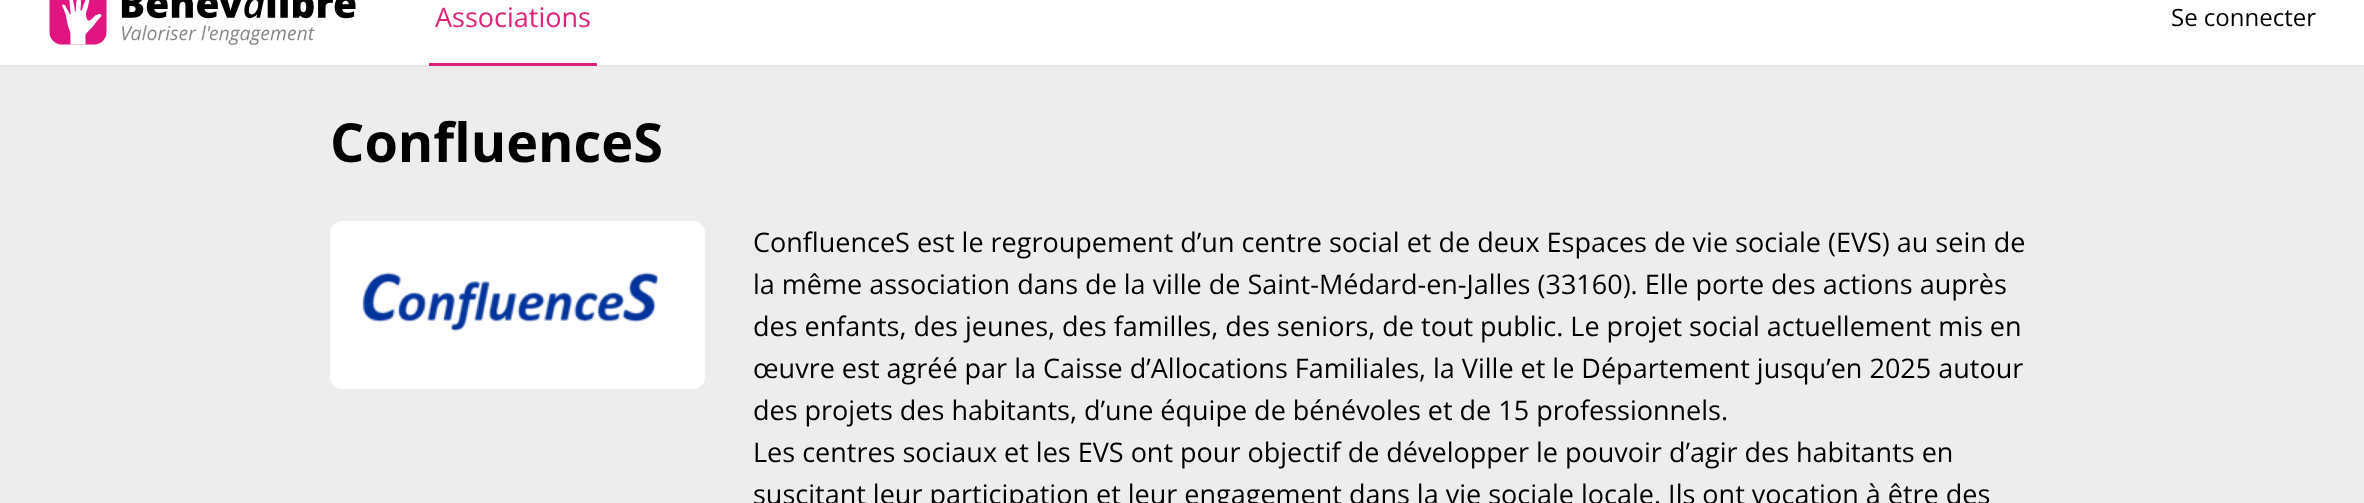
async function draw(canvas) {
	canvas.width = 2364;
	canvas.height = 503;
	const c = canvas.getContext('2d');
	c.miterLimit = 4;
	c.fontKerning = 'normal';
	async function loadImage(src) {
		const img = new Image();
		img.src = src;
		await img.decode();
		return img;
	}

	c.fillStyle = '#ededed';
	c.fillRect(0, 0, 2364, 503);
	c.fillStyle = '#0000000d';
	c.filter = 'blur(1.5px)';
	c.beginPath();
	c.rect(0, -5, 2364, 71);
	c.fill();
	c.filter = 'none';
	c.fillStyle = '#fff';
	c.fillRect(0, 0, 2364, 65);
	c.drawImage(await loadImage('img1.png'), 49, 0, 307, 45);
	c.fillStyle = '#df2378';
	c.fillRect(429, 63, 168, 3);
	c.font = '27px Open Sans';
	c.fillText('Associations', 435, 27);
	c.font = '24px Open Sans';
	c.fillStyle = '#000';
	c.fillText('Se connecter', 2171, 26);
	c.font = 'bold 54px Open Sans';
	c.fillText('ConfluenceS', 330, 162);
	c.fillStyle = '#fff';
	c.beginPath();
	c.roundRect(330, 221, 375, 168, 12);
	c.fill();
	c.drawImage(await loadImage('img2.png'), 362, 272, 297, 60);
	c.font = '27px Open Sans';
	c.fillStyle = '#000';
	for (const [text, x, y] of [
		['ConfluenceS est le regroupement d’un centre social et de deux Espaces de vie sociale (EVS) au sein de', 753, 252],
		['la même association dans de la ville de Saint-Médard-en-Jalles (33160). Elle porte des actions auprès', 753, 294],
		['des enfants, des jeunes, des familles, des seniors, de tout public. Le projet social actuellement mis en', 753, 336],
		['œuvre est agréé par la Caisse d’Allocations Familiales, la Ville et le Département jusqu’en 2025 autour', 753, 378],
		['des projets des habitants, d’une équipe de bénévoles et de 15 professionnels.', 753, 420],
		['Les centres sociaux et les EVS ont pour objectif de développer le pouvoir d’agir des habitants en', 753, 462],
		['suscitant leur participation et leur engagement dans la vie sociale locale. Ils ont vocation à être des', 753, 504],
	]) {
		c.fillText(text, x, y);
	}
}

draw(document.querySelector('canvas'));
